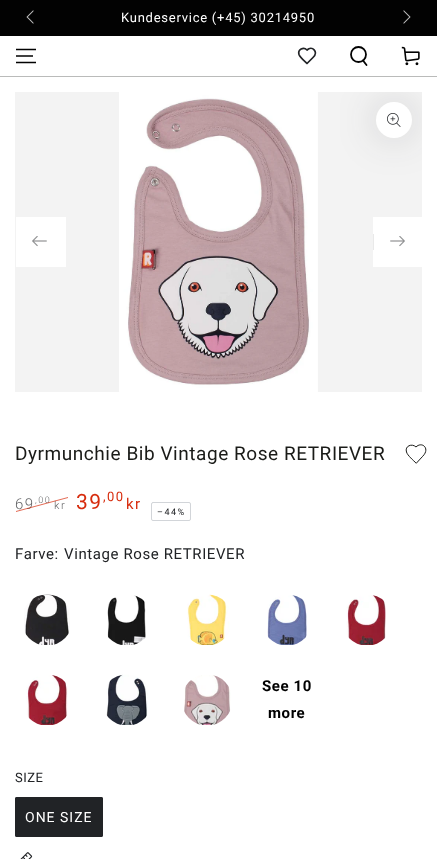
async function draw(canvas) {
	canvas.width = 437;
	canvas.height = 859;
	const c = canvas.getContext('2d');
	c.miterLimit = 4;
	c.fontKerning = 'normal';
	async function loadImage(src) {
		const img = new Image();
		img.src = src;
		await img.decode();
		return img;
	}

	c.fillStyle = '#fff';
	c.fillRect(0, 0, 437, 859);
	c.fillStyle = '#020202';
	c.fillRect(0, 0, 437, 36);
	c.drawImage(await loadImage('img1.png'), 26, 10, 8, 14);
	c.drawImage(await loadImage('img2.png'), 403, 10, 8, 14);
	c.letterSpacing = '0.75px';
	c.font = '13px Roboto';
	c.fillStyle = '#fff';
	c.fillText('Kundeservice (+45) 30214950', 121, 22);
	c.fillStyle = '#f3f3f3';
	c.fillRect(15, 92, 407, 300);
	c.drawImage(await loadImage('img5.png'), 119, 92, 199, 300);
	c.save();
	c.beginPath();
	c.rect(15, 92, 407, 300);
	c.clip();
	c.fillStyle = '#21232633';
	c.filter = 'blur(20px)';
	c.beginPath();
	c.roundRect(376, 102, 36, 36, 18);
	c.fill();
	c.filter = 'none';
	c.restore();
	c.fillStyle = '#babbba';
	c.fillRect(0, 76, 437, 1);
	c.beginPath();
	c.moveTo(16, 62.5);
	c.lineTo(36, 62.5);
	c.moveTo(16, 56);
	c.lineTo(33, 56);
	c.moveTo(16, 49.5);
	c.lineTo(36, 49.5);
	c.strokeStyle = '#020202';
	c.lineWidth = 1.6;
	c.stroke();
	c.beginPath();
	c.moveTo(313, 57.5);
	c.bezierCurveTo(319, 51.5, 312, 45.5, 307, 50);
	c.bezierCurveTo(303.5, 46.5, 297.5, 49.5, 299, 54.5);
	c.bezierCurveTo(300, 57.5, 305, 61.5, 307, 63.5);
	c.closePath();
	c.strokeStyle = '#212326';
	c.lineWidth = 1.7;
	c.lineCap = 'round';
	c.lineJoin = 'round';
	c.stroke();
	c.beginPath();
	c.arc(358.5, 54.5, 7.5, 0, 2 * Math.PI);
	c.strokeStyle = '#020202';
	c.lineWidth = 1.8;
	c.stroke();
	c.beginPath();
	c.moveTo(363, 60.5);
	c.lineTo(366.5, 65);
	c.lineJoin = 'miter';
	c.stroke();
	c.drawImage(await loadImage('img3.png'), 401, 46, 19, 20);
	c.fillStyle = '#fff';
	c.beginPath();
	c.arc(394, 120, 18, 0, 2 * Math.PI);
	c.fill();
	c.drawImage(await loadImage('img4.png'), 387, 113, 14, 14);
	c.fillRect(16, 217, 50, 50);
	c.drawImage(await loadImage('img6.png'), 32, 236, 15, 11);
	c.fillRect(373, 217, 49, 50);
	c.fillStyle = '#e9e9e9';
	c.fillRect(373, 234, 1, 16);
	c.drawImage(await loadImage('img7.png'), 390, 236, 15, 11);
	c.letterSpacing = '0.55px';
	c.font = '19px Roboto';
	c.fillStyle = '#1a1b18';
	c.fillText('Dyrmunchie Bib Vintage Rose RETRIEVER', 15, 460);
	c.beginPath();
	c.moveTo(423, 456);
	c.bezierCurveTo(430.5, 448.5, 422, 441, 416, 447);
	c.bezierCurveTo(412, 443, 404.5, 446, 406.5, 452);
	c.bezierCurveTo(407.5, 455.5, 413.5, 460.5, 416, 463);
	c.closePath();
	c.strokeStyle = '#1a1b18';
	c.lineWidth = 1;
	c.lineJoin = 'round';
	c.stroke();
	c.letterSpacing = '1.5px';
	c.font = '300 9px Roboto';
	c.fillStyle = '#646567';
	c.fillText(',00', 35, 503);
	c.font = '300 15px Roboto';
	c.fillText('69', 15, 509);
	c.font = '300 11px Roboto';
	c.fillText('kr', 54, 509);
	c.fillStyle = '#d72c0db3';
	c.beginPath();
	c.moveTo(16, 511);
	c.lineTo(68, 497);
	c.lineTo(68, 498);
	c.lineTo(16, 512);
	c.closePath();
	c.fill();
	c.font = '21px Roboto';
	c.fillStyle = '#d72c0d';
	c.fillText('39', 76, 509);
	c.font = '13px Roboto';
	c.fillText(',00', 103, 501);
	c.font = '15px Roboto';
	c.fillText('kr', 126, 509);
	c.beginPath();
	c.roundRect(151.5, 502.5, 39, 18, 1.5);
	c.strokeStyle = '#d2d5d9';
	c.lineJoin = 'miter';
	c.stroke();
	c.font = '9px Roboto';
	c.fillStyle = '#212326';
	c.fillText('–44%', 157, 515);
	c.letterSpacing = '0.6px';
	c.font = '15px Roboto';
	c.fillText('Farve:', 15, 559);
	c.fillText('Vintage Rose RETRIEVER', 64, 559);
	c.drawImage(await loadImage('img8.png'), 24, 594, 46, 51);
	c.drawImage(await loadImage('img9.png'), 107, 595, 39, 50);
	c.drawImage(await loadImage('img10.png'), 187, 594, 43, 51);
	c.drawImage(await loadImage('img11.png'), 267, 595, 40, 50);
	c.drawImage(await loadImage('img12.png'), 346, 595, 40, 50);
	c.drawImage(await loadImage('img13.png'), 26, 675, 42, 50);
	c.drawImage(await loadImage('img14.png'), 106, 674, 42, 51);
	c.drawImage(await loadImage('img15.png'), 184, 675, 47, 50);
	c.font = 'bold 15px Roboto';
	c.fillStyle = '#000';
	c.fillText('See 10', 262, 691);
	c.fillText('more', 268, 718);
	c.letterSpacing = '0.5px';
	c.font = '13px Roboto';
	c.fillStyle = '#212326';
	c.fillText('SIZE', 15, 782);
	c.beginPath();
	c.roundRect(16, 798, 86, 38, 1);
	c.strokeStyle = '#212326';
	c.lineWidth = 2;
	c.stroke();
	c.beginPath();
	c.roundRect(15, 797, 88, 40, 2);
	c.fill();
	c.letterSpacing = '1px';
	c.font = '14px Roboto';
	c.fillStyle = '#fff';
	c.fillText('ONE SIZE', 25, 822);
	c.drawImage(await loadImage('img16.png'), 20, 852, 13, 7);
}

draw(document.querySelector('canvas'));
